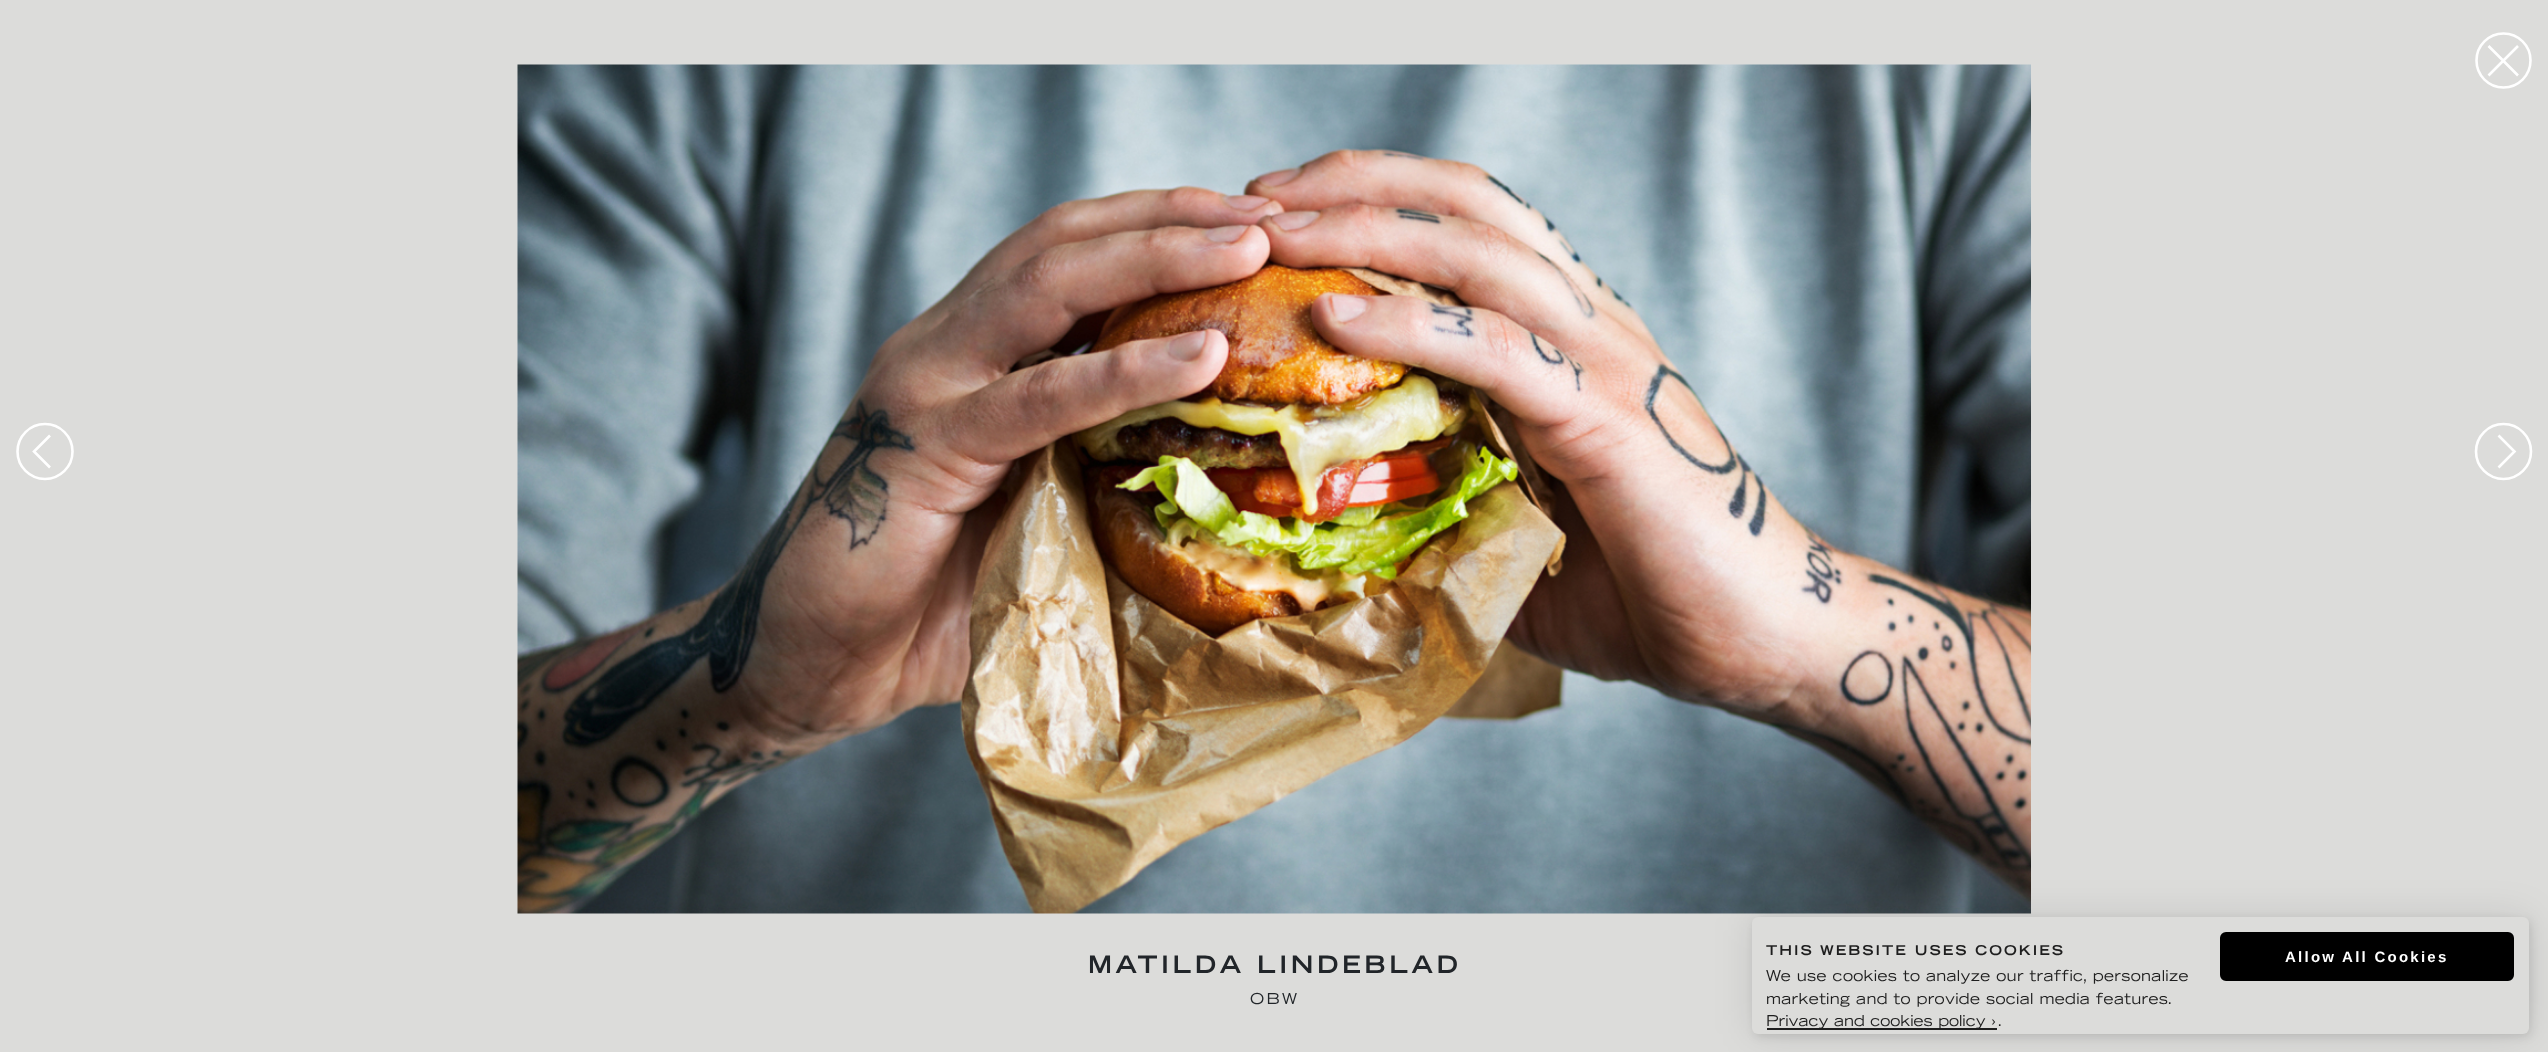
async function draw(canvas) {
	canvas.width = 2548;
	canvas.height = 1052;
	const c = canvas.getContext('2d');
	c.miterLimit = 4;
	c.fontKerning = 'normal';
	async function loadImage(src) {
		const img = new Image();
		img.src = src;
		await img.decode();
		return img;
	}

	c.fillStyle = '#dcdcda';
	c.fillRect(0, 0, 2548, 1052);
	c.beginPath();
	c.arc(45, 451.5, 27.5, 0, 2 * Math.PI);
	c.strokeStyle = '#fff';
	c.lineWidth = 2.6;
	c.stroke();
	c.beginPath();
	c.moveTo(50, 435.5);
	c.lineTo(34, 451.5);
	c.lineTo(50, 467.5);
	c.stroke();
	c.drawImage(await loadImage('img1.png'), 517, 64, 1514, 850);
	c.beginPath();
	c.arc(2503.5, 60.5, 27, 0, 2 * Math.PI);
	c.stroke();
	c.beginPath();
	c.moveTo(2488.5, 75.5);
	c.lineTo(2518, 46);
	c.moveTo(2518, 75.5);
	c.lineTo(2488.5, 46);
	c.stroke();
	c.beginPath();
	c.arc(2503.5, 451.5, 27.5, 0, 2 * Math.PI);
	c.stroke();
	c.beginPath();
	c.moveTo(2498.5, 467.5);
	c.lineTo(2514.5, 451.5);
	c.lineTo(2498.5, 435.5);
	c.stroke();
	c.letterSpacing = '3.6px';
	c.font = 'bold 24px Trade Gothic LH';
	c.fillStyle = '#212529';
	c.fillText('MATILDA LINDEBLAD', 1088, 973);
	c.letterSpacing = '2.25px';
	c.font = '15px Trade Gothic LH';
	c.fillText('OBW', 1250, 1004);
	c.fillStyle = '#0000001a';
	c.filter = 'blur(4px)';
	c.beginPath();
	c.roundRect(1754, 920, 777, 117, 6);
	c.fill();
	c.filter = 'none';
	c.filter = 'blur(19px)';
	c.beginPath();
	c.roundRect(1752, 917, 777, 117, 6);
	c.fill();
	c.filter = 'none';
	c.fillStyle = '#dcdcda';
	c.beginPath();
	c.roundRect(1752, 917, 777, 117, 6);
	c.fill();
	c.letterSpacing = '2px';
	c.font = 'bold 13.5px Trade Gothic LH';
	c.fillStyle = '#1e1e1e';
	c.fillText('THIS WEBSITE USES COOKIES', 1766, 955);
	c.letterSpacing = '0.3px';
	c.font = '15px Trade Gothic LH';
	c.fillText('We use cookies to analyze our traffic, personalize', 1766, 981);
	c.fillText('marketing and to provide social media features.', 1766, 1004);
	c.fillRect(1767, 1028, 230, 2);
	c.letterSpacing = '0px';
	c.fillText('Privacy and cookies policy ›', 1766, 1026);
	c.letterSpacing = '0.3px';
	c.fillText('.', 1997, 1026);
	c.fillStyle = '#000';
	c.beginPath();
	c.roundRect(2221, 933, 292, 47, 5);
	c.fill();
	c.strokeStyle = '#000';
	c.lineWidth = 2;
	c.stroke();
	c.letterSpacing = '2.25px';
	c.font = 'bold 15px Liberation Sans';
	c.fillStyle = '#fff';
	c.fillText('Allow All Cookies', 2285, 962);
}

draw(document.querySelector('canvas'));
